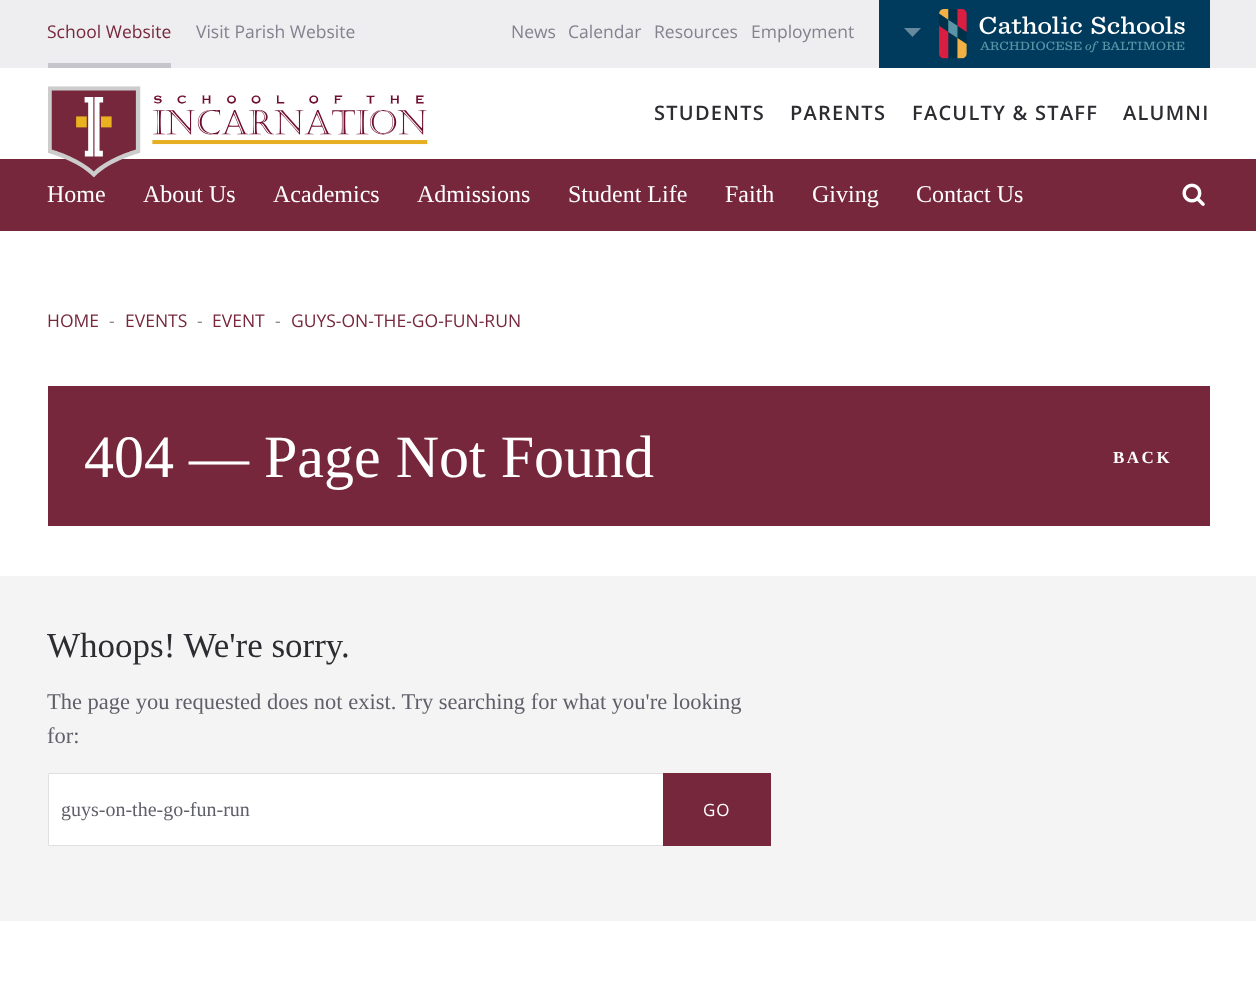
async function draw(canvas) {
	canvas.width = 1256;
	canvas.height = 988;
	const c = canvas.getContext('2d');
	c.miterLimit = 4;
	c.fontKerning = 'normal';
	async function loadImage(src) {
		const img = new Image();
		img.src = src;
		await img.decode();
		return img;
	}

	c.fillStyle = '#fff';
	c.fillRect(0, 0, 1256, 988);
	c.fillStyle = '#eeedef';
	c.fillRect(0, 0, 1256, 68);
	c.fillStyle = '#c6c5cb';
	c.fillRect(48, 63, 123, 5);
	c.font = '17.5px Open Sans';
	c.fillStyle = '#76273c';
	c.fillText('School Website', 47, 38);
	c.fillStyle = '#84828f';
	for (const [text, x, y] of [
		['Visit Parish Website', 196, 38],
		['News', 511, 38],
		['Calendar', 568, 38],
		['Resources', 654, 38],
		['Employment', 751, 38],
	]) {
		c.fillText(text, x, y);
	}
	c.fillStyle = '#003a5d';
	c.fillRect(879, 0, 331, 68);
	c.fillStyle = '#66899e';
	c.beginPath();
	c.moveTo(921, 28);
	c.lineTo(912.5, 37);
	c.lineTo(904, 28);
	c.closePath();
	c.fill();
	c.drawImage(await loadImage('img1.png'), 939, 9, 246, 50);
	c.fillStyle = '#76273c';
	c.fillRect(0, 159, 1256, 72);
	c.drawImage(await loadImage('img2.png'), 48, 86, 380, 92);
	c.letterSpacing = '1.25px';
	c.font = '600 20px Open Sans';
	c.fillStyle = '#2c2c31';
	for (const [text, x, y] of [
		['STUDENTS', 654, 120],
		['PARENTS', 790, 120],
		['FACULTY & STAFF', 912, 120],
		['ALUMNI', 1123, 120],
	]) {
		c.fillText(text, x, y);
	}
	c.letterSpacing = '0px';
	c.font = '24px Liberation Serif';
	c.fillStyle = '#fff';
	for (const [text, x, y] of [
		['Home', 47, 202],
		['About Us', 143, 202],
		['Academics', 273, 202],
		['Admissions', 417, 202],
		['Student Life', 568, 202],
		['Faith', 725, 202],
		['Giving', 812, 202],
		['Contact Us', 916, 202],
	]) {
		c.fillText(text, x, y);
	}
	c.drawImage(await loadImage('img3.png'), 1182, 183, 23, 23);
	c.font = '17.5px Open Sans';
	c.fillStyle = '#76273c';
	c.fillText('HOME', 47, 327);
	c.fillStyle = '#84828f';
	c.fillText('-', 109, 327);
	c.fillStyle = '#76273c';
	c.fillText('EVENTS', 125, 327);
	c.fillStyle = '#84828f';
	c.fillText('-', 197, 327);
	c.fillStyle = '#76273c';
	c.fillText('EVENT', 212, 327);
	c.fillStyle = '#84828f';
	c.fillText('-', 275, 327);
	c.fillStyle = '#76273c';
	c.fillText('GUYS-ON-THE-GO-FUN-RUN', 291, 327);
	c.fillRect(48, 386, 1162, 140);
	c.font = '60px Liberation Serif';
	c.fillStyle = '#fff';
	c.fillText('404 — Page Not Found', 84, 477);
	c.letterSpacing = '2.5px';
	c.font = 'bold 17px Liberation Serif';
	c.fillText('BACK', 1113, 463);
	c.fillStyle = '#f4f4f4';
	c.fillRect(0, 576, 1256, 345);
	c.letterSpacing = '0px';
	c.font = '35px Liberation Serif';
	c.fillStyle = '#2c2c31';
	c.fillText('Whoops! We\'re sorry.', 47, 657);
	c.font = '22.5px Liberation Serif';
	c.fillStyle = '#5f5f69';
	c.fillText('The page you requested does not exist. Try searching for what you\'re looking', 47, 709);
	c.fillText('for:', 47, 743);
	c.fillStyle = '#fff';
	c.beginPath();
	c.rect(48.5, 773.5, 615, 72);
	c.fill();
	c.strokeStyle = '#e0e0e3';
	c.stroke();
	c.font = '20px Liberation Serif';
	c.fillStyle = '#5f5f69';
	c.fillText('guys-on-the-go-fun-run', 61, 816);
	c.fillStyle = '#76273c';
	c.fillRect(663, 773, 108, 73);
	c.letterSpacing = '1px';
	c.font = '17px Open Sans';
	c.fillStyle = '#fff';
	c.fillText('GO', 703, 816);
}

draw(document.querySelector('canvas'));
